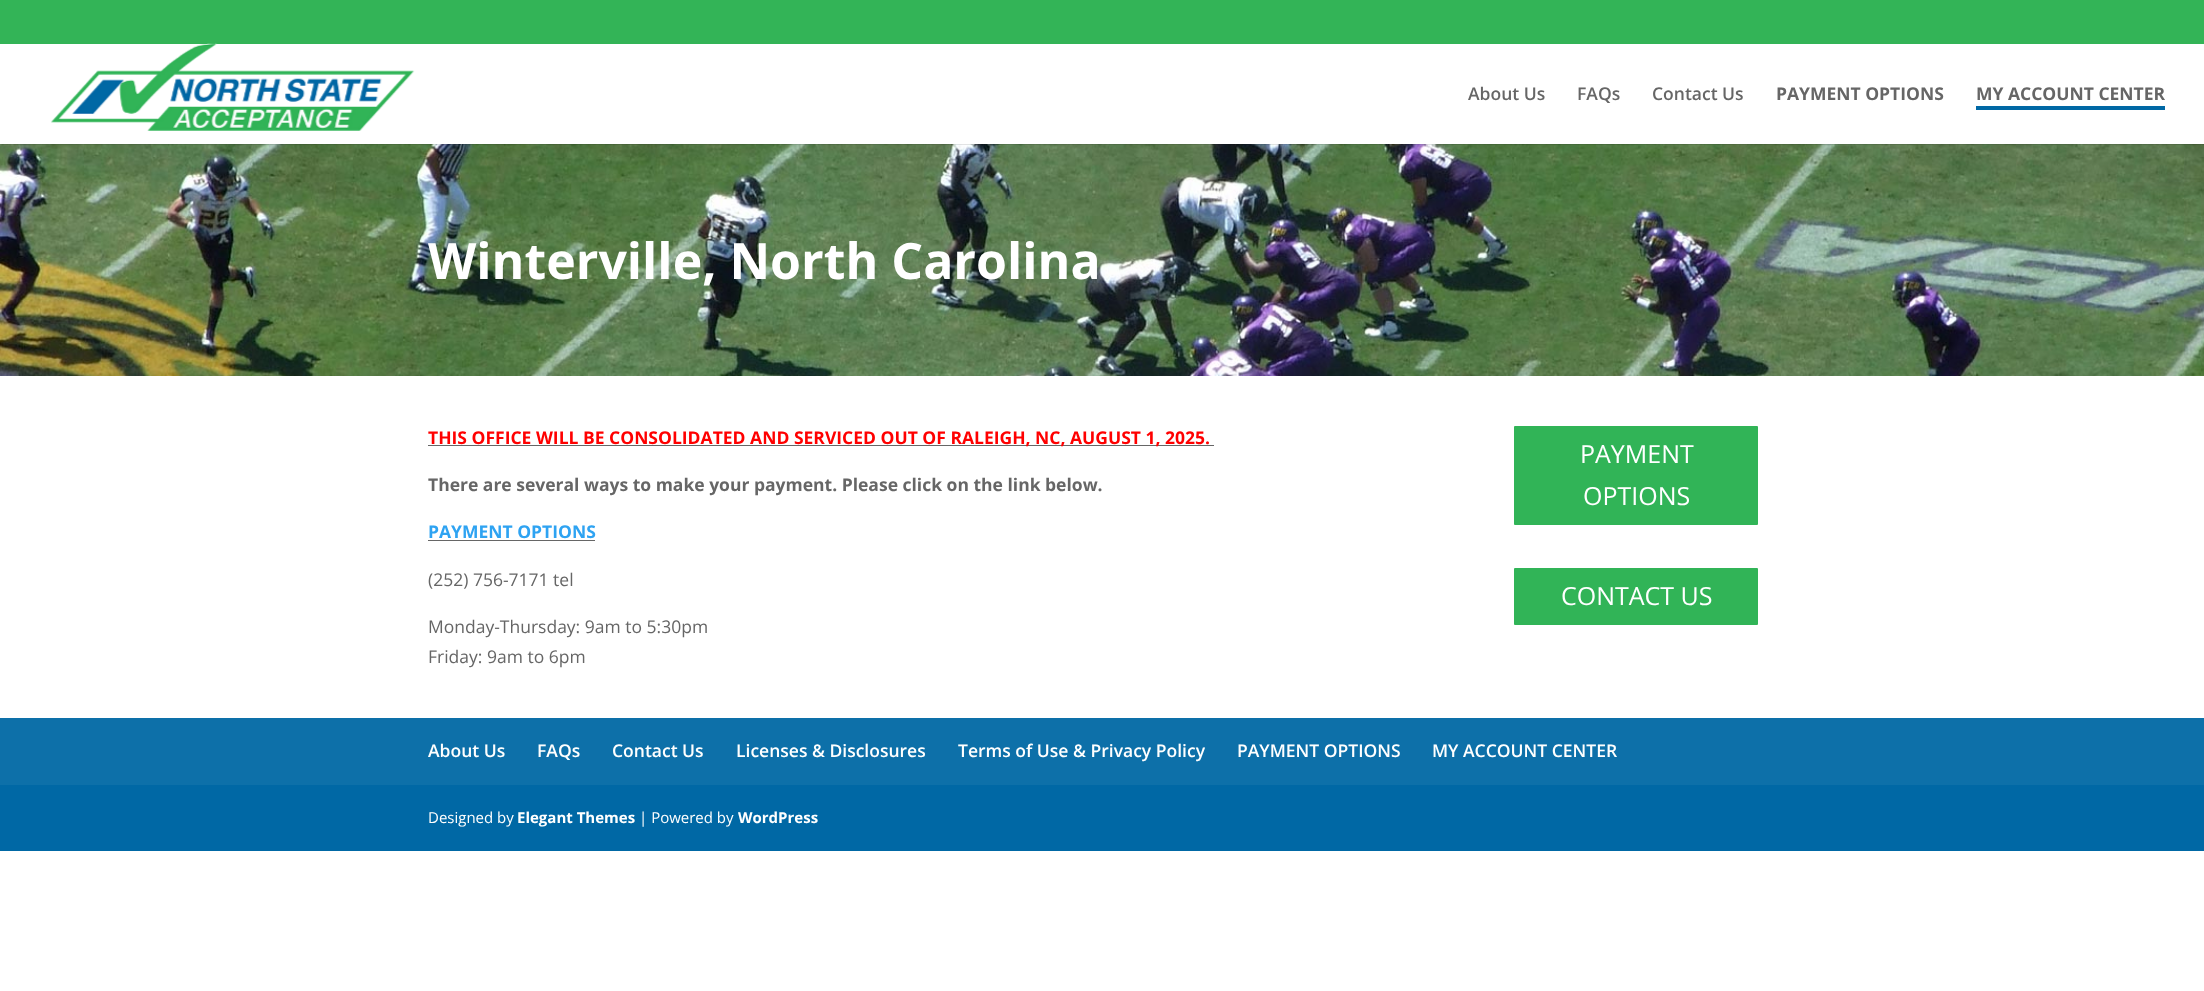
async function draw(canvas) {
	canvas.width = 2204;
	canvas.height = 991;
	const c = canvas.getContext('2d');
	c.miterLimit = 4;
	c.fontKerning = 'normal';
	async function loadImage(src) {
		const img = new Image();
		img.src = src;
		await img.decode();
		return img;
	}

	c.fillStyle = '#fff';
	c.fillRect(0, 0, 2204, 991);
	c.fillStyle = '#33b457';
	c.fillRect(0, 0, 2204, 44);
	c.drawImage(await loadImage('img2.png'), 0, 144, 2204, 232);
	c.fillStyle = '#0000001a';
	c.fillRect(0, 144, 2204, 1);
	c.drawImage(await loadImage('img1.png'), 51, 43, 364, 88);
	c.font = '600 17.5px Open Sans';
	c.fillStyle = '#666';
	for (const [text, x, y] of [
		['About Us', 1468, 100],
		['FAQs', 1577, 100],
		['Contact Us', 1652, 100],
	]) {
		c.fillText(text, x, y);
	}
	c.font = 'bold 17.5px Open Sans';
	c.fillText('PAYMENT OPTIONS', 1776, 100);
	c.fillText('MY ACCOUNT CENTER', 1976, 100);
	c.fillStyle = '#0068a5';
	c.fillRect(1976, 106, 189, 4);
	c.font = 'bold 50px Open Sans';
	c.fillStyle = '#fff';
	c.fillText('Winterville, North Carolina', 428, 279);
	c.fillStyle = '#666';
	c.fillRect(428, 445, 786, 1);
	c.font = 'bold 17.5px Open Sans';
	c.fillStyle = '#f00';
	c.fillText('THIS OFFICE WILL BE CONSOLIDATED AND SERVICED OUT OF RALEIGH, NC, AUGUST 1, 2025.', 428, 444);
	c.fillStyle = '#666';
	c.fillText('There are several ways to make your payment. Please click on the link below.', 428, 491);
	c.fillStyle = '#2ea3f2';
	c.fillText('PAYMENT OPTIONS', 428, 538);
	c.fillStyle = '#666';
	c.fillRect(428, 540, 167, 1);
	c.font = '17.5px Open Sans';
	for (const [text, x, y] of [
		['(252) 756-7171 tel', 428, 586],
		['Monday-Thursday: 9am to 5:30pm', 428, 633],
		['Friday: 9am to 6pm', 428, 663],
	]) {
		c.fillText(text, x, y);
	}
	c.fillStyle = '#31b457';
	c.beginPath();
	c.roundRect(1512.5, 424.5, 247, 102, 2.5);
	c.fill();
	c.strokeStyle = '#fff';
	c.lineWidth = 3;
	c.stroke();
	c.font = '25px Open Sans';
	c.fillStyle = '#fff';
	c.fillText('PAYMENT', 1580, 463);
	c.fillText('OPTIONS', 1583, 505);
	c.fillStyle = '#31b457';
	c.beginPath();
	c.roundRect(1512.5, 566.5, 247, 60, 2.5);
	c.fill();
	c.stroke();
	c.fillStyle = '#fff';
	c.fillText('CONTACT US', 1561, 605);
	c.fillStyle = '#0068a5';
	c.fillRect(0, 785, 2204, 66);
	c.fillStyle = '#0d70a9';
	c.fillRect(0, 718, 2204, 67);
	c.font = '600 17.5px Open Sans';
	c.fillStyle = '#fff';
	for (const [text, x, y] of [
		['About Us', 428, 757],
		['FAQs', 537, 757],
		['Contact Us', 612, 757],
		['Licenses & Disclosures', 736, 757],
		['Terms of Use & Privacy Policy', 958, 757],
		['PAYMENT OPTIONS', 1237, 757],
		['MY ACCOUNT CENTER', 1432, 757],
	]) {
		c.fillText(text, x, y);
	}
	c.font = '15px Open Sans';
	c.fillText('Designed by', 428, 823);
	c.font = 'bold 15px Open Sans';
	c.fillText('Elegant Themes', 517, 823);
	c.font = '15px Open Sans';
	c.fillText('| Powered by', 639, 823);
	c.font = 'bold 15px Open Sans';
	c.fillText('WordPress', 738, 823);
}

draw(document.querySelector('canvas'));
